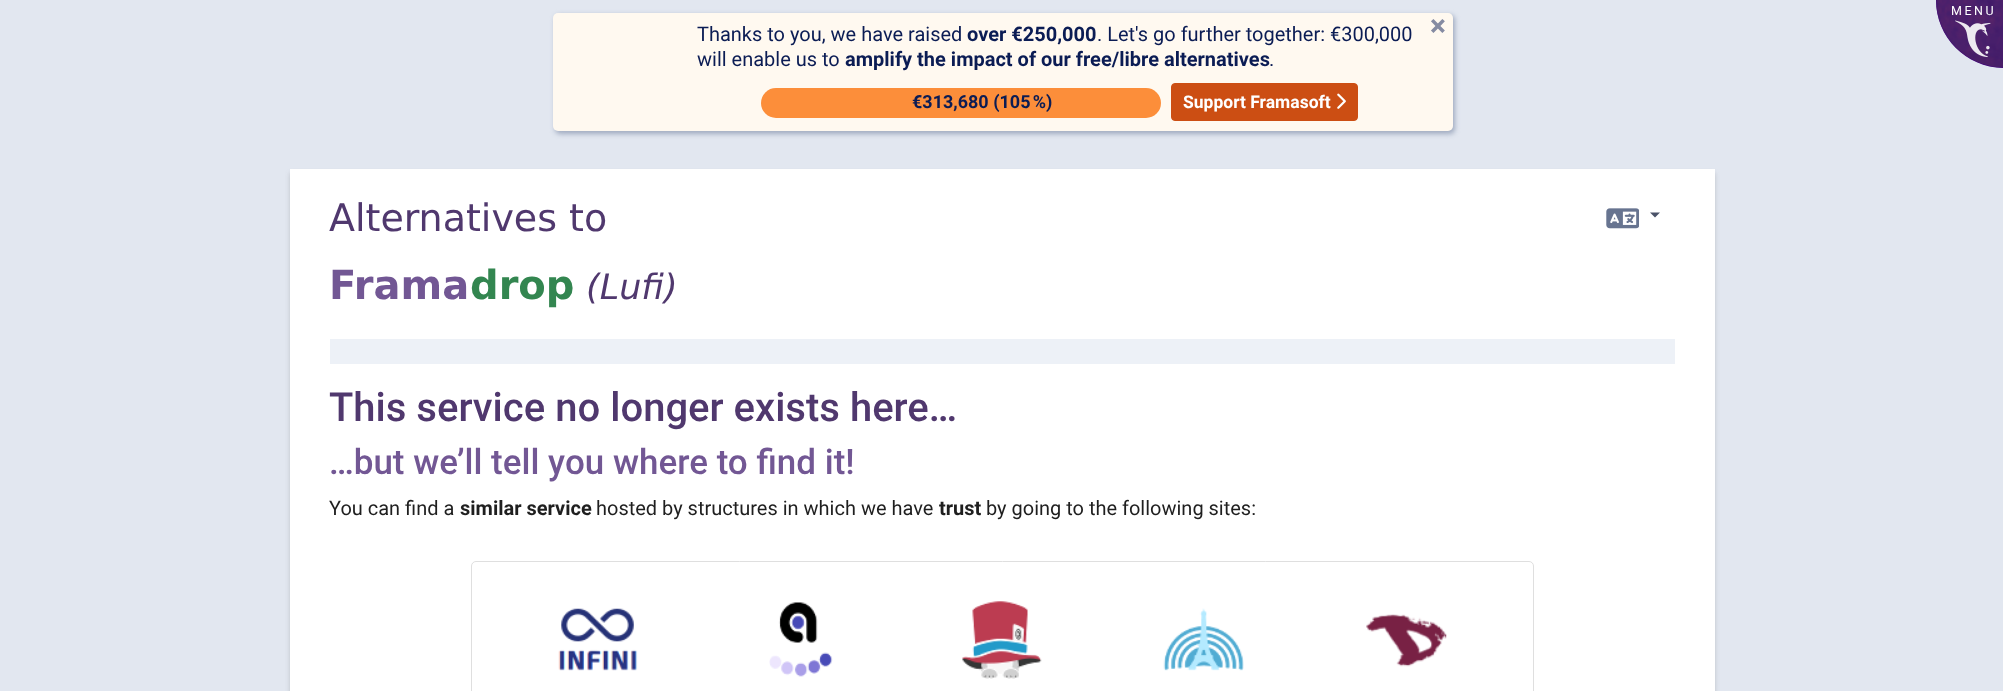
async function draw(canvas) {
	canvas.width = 2003;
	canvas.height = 691;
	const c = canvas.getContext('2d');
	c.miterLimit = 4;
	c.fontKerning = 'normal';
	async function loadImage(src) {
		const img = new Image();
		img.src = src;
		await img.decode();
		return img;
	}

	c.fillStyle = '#e2e7f0';
	c.fillRect(0, 0, 2003, 691);
	c.fillStyle = '#400180';
	c.beginPath();
	c.moveTo(1936, 0);
	c.lineTo(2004, 0);
	c.lineTo(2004, 68);
	c.bezierCurveTo(1966.5, 68, 1936, 37.5, 1936, 0);
	c.closePath();
	c.fill();
	c.drawImage(await loadImage('img1.png'), 1936, 0, 67, 68);
	c.letterSpacing = '2.5px';
	c.font = '12.5px Roboto';
	c.fillStyle = '#fff';
	c.fillText('MENU', 1951, 15);
	c.drawImage(await loadImage('img2.png'), 1955, 20, 36, 38);
	c.fillStyle = '#a0abc0';
	c.filter = 'blur(2.5px)';
	c.beginPath();
	c.roundRect(555, 15, 900, 119, 5);
	c.fill();
	c.filter = 'none';
	c.fillStyle = '#fff9f0';
	c.beginPath();
	c.roundRect(553, 13, 900, 118, 5);
	c.fill();
	c.letterSpacing = '0px';
	c.font = '20px Roboto';
	c.fillStyle = '#0b1c54';
	c.fillText('Thanks to you, we have raised', 697, 41);
	c.font = 'bold 20px Roboto';
	c.fillText('over €250,000', 967, 41);
	c.font = '20px Roboto';
	c.fillText('. Let\'s go further together: €300,000', 1097, 41);
	c.fillText('will enable us to', 697, 66);
	c.font = 'bold 20px Roboto';
	c.fillText('amplify the impact of our free/libre alternatives', 845, 66);
	c.font = '20px Roboto';
	c.fillText('.', 1269, 66);
	c.fillStyle = '#fc8e3a';
	c.beginPath();
	c.roundRect(761, 88, 400, 30, 15);
	c.fill();
	c.font = 'bold 18px Roboto';
	c.fillStyle = '#0b1c54';
	c.fillText('€313,680 (105 %)', 912, 108);
	c.fillStyle = '#cc4e13';
	c.beginPath();
	c.roundRect(1171.5, 83.5, 186, 37, 3.5);
	c.fill();
	c.strokeStyle = '#cc4e13';
	c.stroke();
	c.font = 'bold 17.5px Roboto';
	c.fillStyle = '#fff';
	c.fillText('Support Framasoft', 1183, 108);
	c.drawImage(await loadImage('img3.png'), 1337, 93, 9, 16);
	c.font = 'bold 30px Roboto';
	c.fillStyle = '#858ba2';
	c.fillText('×', 1430, 36);
	c.fillStyle = '#32323233';
	c.filter = 'blur(2.5px)';
	c.beginPath();
	c.rect(290, 173, 1425, 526);
	c.fill();
	c.filter = 'none';
	c.fillStyle = '#fff';
	c.fillRect(290, 169, 1425, 522);
	c.font = '40px DejaVu Sans';
	c.fillStyle = '#50386e';
	c.fillText('Alternatives to', 329, 231);
	c.font = 'bold 40px DejaVu Sans';
	c.fillStyle = '#725794';
	c.fillText('Frama', 329, 299);
	c.fillStyle = '#338650';
	c.fillText('drop', 470, 299);
	c.font = 'italic 35px DejaVu Sans';
	c.fillStyle = '#50386e';
	c.fillText('(Lufi)', 586, 299);
	c.drawImage(await loadImage('img4.png'), 1606, 208, 33, 21);
	c.fillStyle = '#4a5268';
	c.beginPath();
	c.moveTo(1650, 212.5);
	c.lineTo(1660, 212.5);
	c.lineTo(1655, 217.5);
	c.closePath();
	c.fill();
	c.fillStyle = '#edf1f7';
	c.fillRect(330, 339, 1345, 25);
	c.font = '500 40px Roboto';
	c.fillStyle = '#50386e';
	c.fillText('This service no longer exists here…', 329, 421);
	c.font = '500 35px Roboto';
	c.fillStyle = '#725794';
	c.fillText('…but we’ll tell you where to find it!', 329, 474);
	c.font = '20px Roboto';
	c.fillStyle = '#1f1f1f';
	c.fillText('You can find a', 329, 515);
	c.font = 'bold 20px Roboto';
	c.fillText('similar service', 460, 515);
	c.font = '20px Roboto';
	c.fillText('hosted by structures in which we have', 596, 515);
	c.font = 'bold 20px Roboto';
	c.fillText('trust', 939, 515);
	c.font = '20px Roboto';
	c.fillText('by going to the following sites:', 986, 515);
	c.beginPath();
	c.roundRect(471.5, 561.5, 1062, 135, 4.5);
	c.strokeStyle = '#dfdfdf';
	c.stroke();
	c.drawImage(await loadImage('img5.png'), 558, 608, 80, 63);
	c.drawImage(await loadImage('img6.png'), 769, 602, 64, 75);
	c.drawImage(await loadImage('img7.png'), 962, 601, 80, 78);
	c.drawImage(await loadImage('img8.png'), 1163, 608, 81, 63);
	c.drawImage(await loadImage('img9.png'), 1366, 614, 81, 53);
}

draw(document.querySelector('canvas'));
